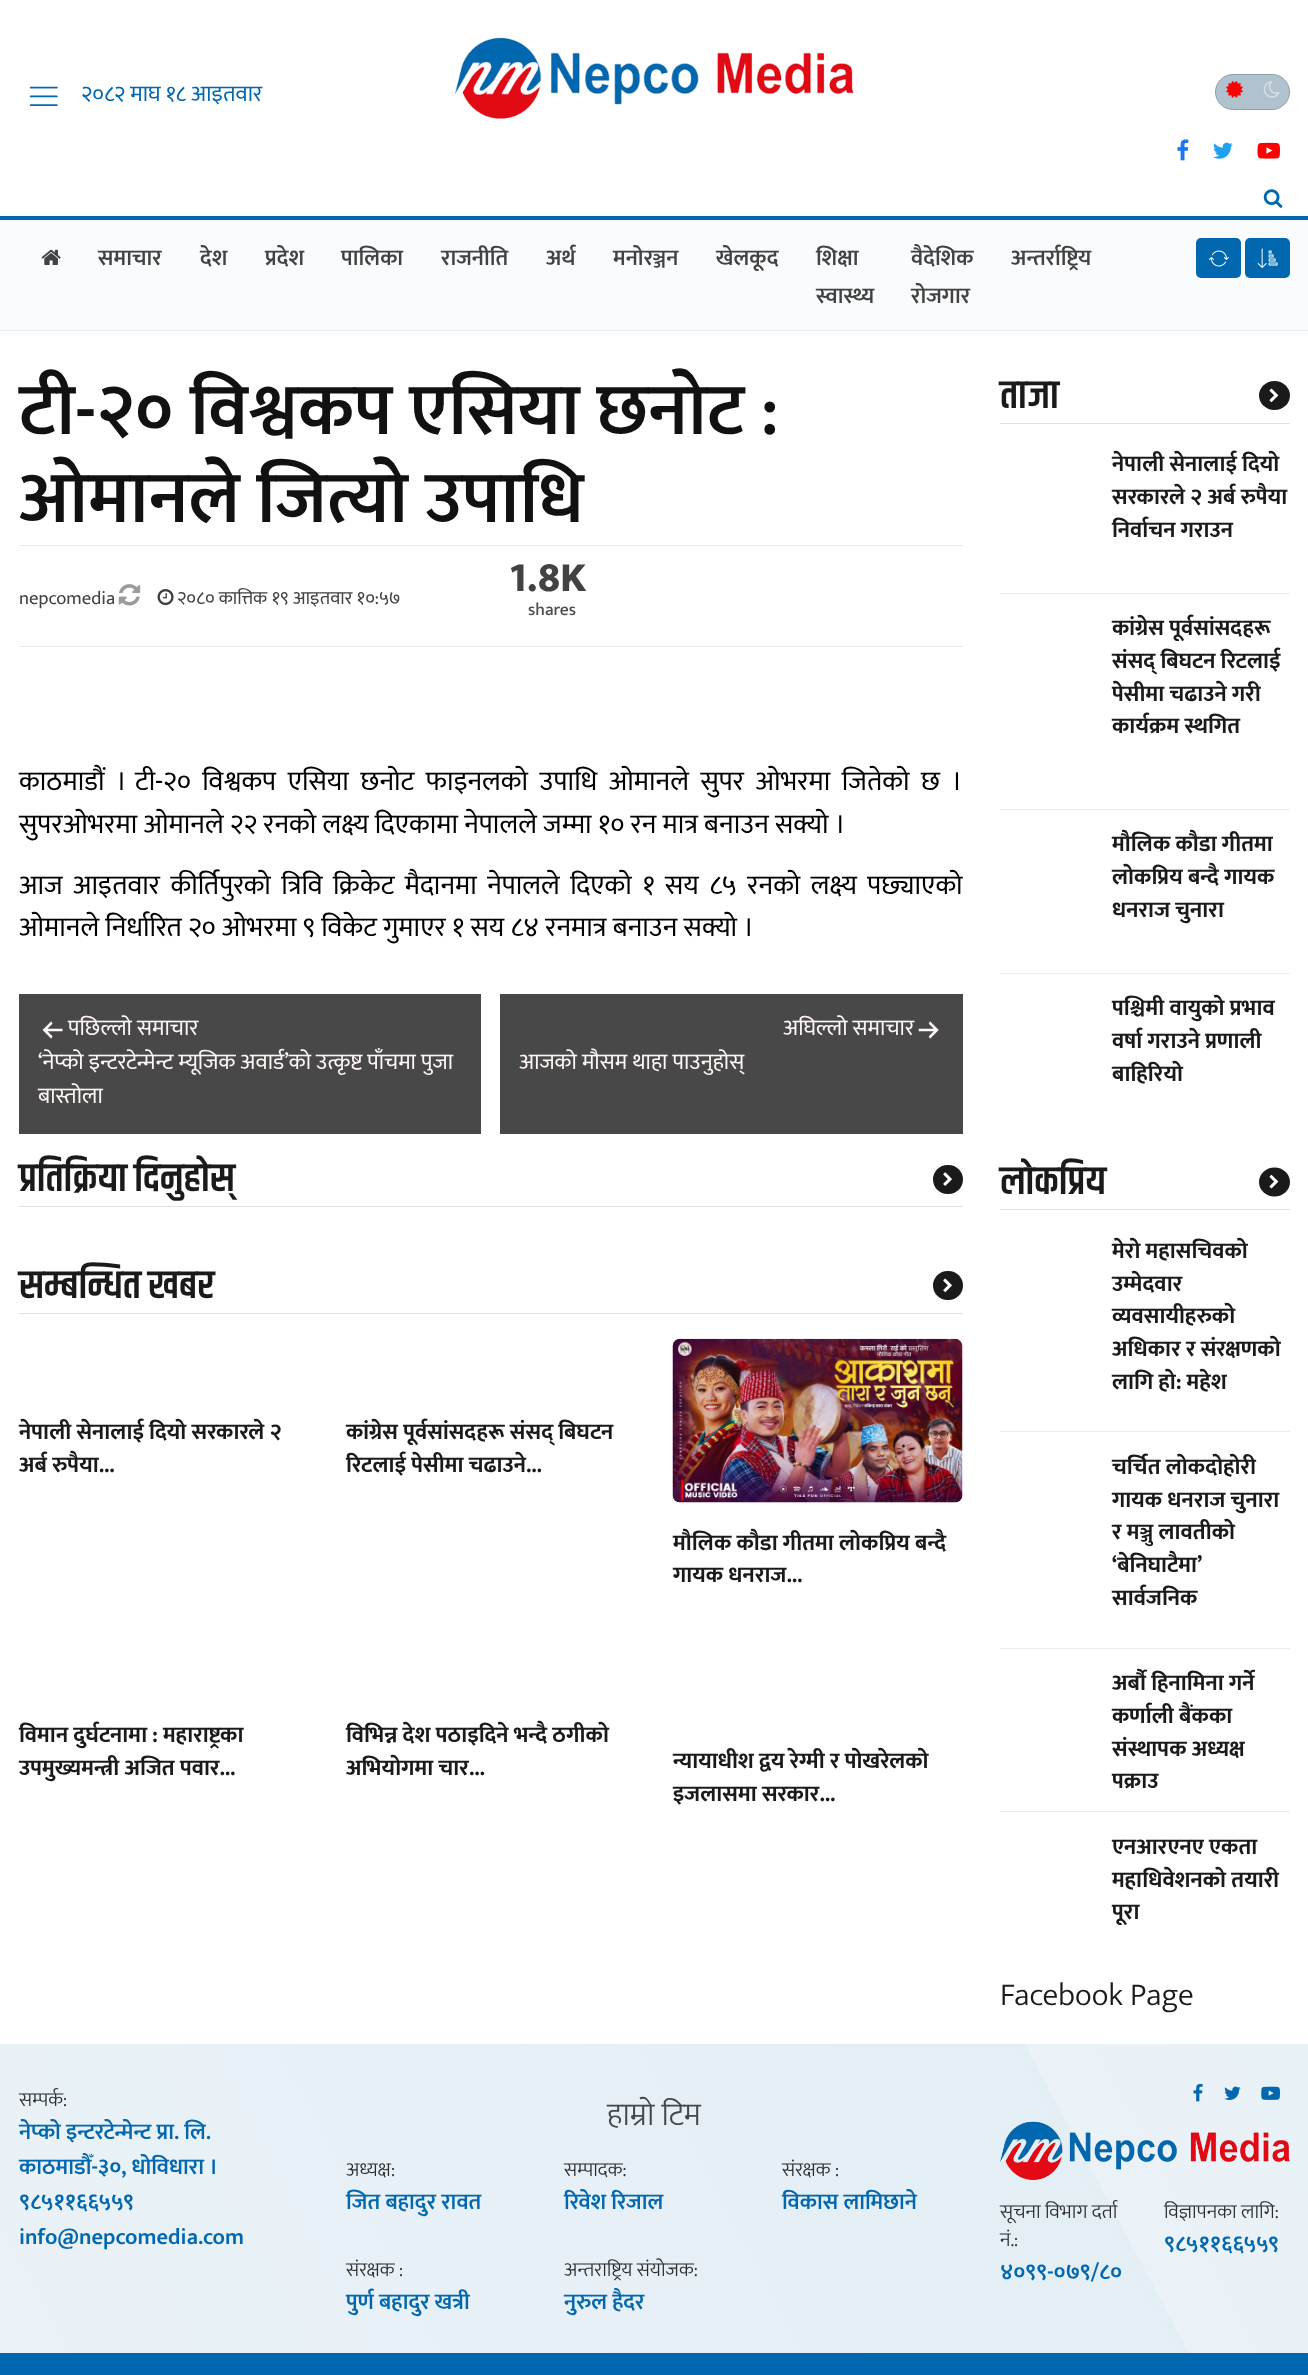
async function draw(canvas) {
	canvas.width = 1308;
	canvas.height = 2375;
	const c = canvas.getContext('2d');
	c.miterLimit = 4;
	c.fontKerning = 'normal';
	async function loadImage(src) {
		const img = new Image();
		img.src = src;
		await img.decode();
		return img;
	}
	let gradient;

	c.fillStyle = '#fff';
	c.fillRect(0, 0, 1308, 2375);
	c.drawImage(await loadImage('img1.png'), 29, 86, 29, 20);
	c.font = '22.5px Mukta';
	c.fillStyle = '#0167af';
	c.fillText('२०८२ माघ १८ आइतवार', 81, 101);
	c.drawImage(await loadImage('img2.png'), 455, 37, 399, 82);
	c.fillStyle = '#b1c2cf';
	c.beginPath();
	c.roundRect(1215.5, 74.5, 74, 35, 17.5);
	c.fill();
	c.strokeStyle = '#8b9faf';
	c.stroke();
	c.drawImage(await loadImage('img3.png'), 1226, 81, 17, 17);
	c.drawImage(await loadImage('img4.png'), 1263, 81, 17, 17);
	c.drawImage(await loadImage('img5.png'), 1177, 139, 12, 22);
	c.drawImage(await loadImage('img6.png'), 1213, 142, 20, 17);
	c.drawImage(await loadImage('img7.png'), 1257, 142, 23, 17);
	c.drawImage(await loadImage('img8.png'), 1263, 189, 20, 19);
	for (const [x, y, w, h, color] of [
		[0, 220, 1308, 110, '#f9fbfd'],
		[0, 216, 1308, 4, '#0167af'],
		[0, 330, 1308, 1, '#e6ebf1'],
	]) {
		c.fillStyle = color;
		c.fillRect(x, y, w, h);
	}
	c.drawImage(await loadImage('img9.png'), 41, 249, 20, 16);
	c.font = '600 22.5px Mukta';
	c.fillStyle = '#424242';
	for (const [text, x, y] of [
		['समाचार', 98, 265],
		['देश', 200, 265],
		['प्रदेश', 265, 265],
		['पालिका', 341, 265],
		['राजनीति', 441, 265],
		['अर्थ', 546, 265],
		['मनाेरञ्जन', 613, 265],
		['खेलकूद', 716, 265],
		['शिक्षा', 816, 265],
		['स्वास्थ्य', 816, 303],
		['वैदेशिक', 911, 265],
		['राेजगार', 911, 303],
		['अन्तर्राष्ट्रिय', 1011, 265],
	]) {
		c.fillText(text, x, y);
	}
	c.fillStyle = '#0167af';
	c.beginPath();
	c.roundRect(1196, 238, 45, 40, 5);
	c.fill();
	c.drawImage(await loadImage('img10.png'), 1208, 250, 21, 17);
	c.beginPath();
	c.roundRect(1245, 238, 45, 40, 5);
	c.fill();
	c.drawImage(await loadImage('img11.png'), 1257, 248, 21, 20);
	c.font = '600 73.5px Mukta';
	c.fillStyle = '#111';
	c.fillText('टी-२० विश्वकप एसिया छनोट :', 19, 434);
	c.fillText('ओमानले जित्यो उपाधि', 19, 522);
	c.fillStyle = '#ebebeb';
	c.fillRect(19, 545, 944, 1);
	c.fillRect(19, 646, 944, 1);
	c.font = '18.75px Mukta';
	c.fillStyle = '#424242';
	c.fillText('nepcomedia', 19, 604);
	c.drawImage(await loadImage('img12.png'), 118, 584, 23, 22);
	c.drawImage(await loadImage('img13.png'), 157, 589, 17, 17);
	c.fillText('२०८० कात्तिक १९ आइतवार १०:५७', 177, 604);
	c.font = '800 42px Mukta';
	c.fillText('1.8K', 509, 591);
	c.font = '500 17.5px Mukta';
	c.fillStyle = '#4d4d4d';
	c.fillText('shares', 528, 615);
	c.wordSpacing = '5.4px';
	c.font = '27.5px Mukta';
	c.fillStyle = '#000';
	c.fillText('काठमाडौं । टी-२० विश्वकप एसिया छनोट फाइनलको उपाधि ओमानले सुपर ओभरमा जितेको छ ।', 19, 790);
	c.wordSpacing = '0px';
	c.fillText('सुपरओभरमा ओमानले २२ रनको लक्ष्य दिएकामा नेपालले जम्मा १० रन मात्र बनाउन सक्यो ।', 19, 833);
	c.wordSpacing = '4.25px';
	c.fillText('आज आइतवार कीर्तिपुरको त्रिवि क्रिकेट मैदानमा नेपालले दिएको १ सय ८५ रनको लक्ष्य पछ्याएको', 19, 894);
	c.wordSpacing = '0px';
	c.fillText('ओमानले निर्धारित २० ओभरमा ९ विकेट गुमाएर १ सय ८४ रनमात्र बनाउन सक्यो ।', 19, 936);
	c.fillStyle = '#484848';
	c.fillRect(19, 994, 462, 140);
	c.drawImage(await loadImage('img14.png'), 42, 1021, 21, 18);
	c.font = '22.5px Mukta';
	c.fillStyle = '#fff6f6';
	for (const [text, x, y] of [
		['पछिल्लाे समाचार', 68, 1035],
		['‘नेप्को इन्टरटेन्मेन्ट म्यूजिक अवार्ड’काे उत्कृष्ट पाँचमा पुजा', 38, 1069],
		['बास्तोला', 38, 1103],
	]) {
		c.fillText(text, x, y);
	}
	c.fillStyle = '#484848';
	c.fillRect(500, 994, 463, 140);
	c.fillStyle = '#fff6f6';
	c.fillText('अघिल्लाे समाचार', 783, 1035);
	c.drawImage(await loadImage('img15.png'), 918, 1021, 21, 18);
	c.fillText('आजको माैसम थाहा पाउनुहाेस्', 519, 1069);
	c.fillStyle = '#e1e1e1';
	c.fillRect(19, 1206, 944, 1);
	c.font = '600 40px Khand';
	c.fillStyle = '#1a1a1a';
	c.fillText('प्रतिक्रिया दिनुहोस्', 19, 1191);
	c.beginPath();
	c.roundRect(933, 1165, 30, 29, 14.5);
	c.fill();
	c.drawImage(await loadImage('img16.png'), 943, 1172, 9, 14);
	c.fillStyle = '#e1e1e1';
	c.fillRect(19, 1313, 944, 1);
	c.fillStyle = '#1a1a1a';
	c.fillText('सम्बन्धित खबर', 19, 1298);
	c.beginPath();
	c.roundRect(933, 1271, 30, 29, 14.5);
	c.fill();
	c.drawImage(await loadImage('img17.png'), 943, 1278, 9, 15);
	c.font = 'bold 22.5px Mukta';
	for (const [text, x, y] of [
		['नेपाली सेनालाई दियो सरकारले २', 19, 1439],
		['अर्ब रुपैया...', 19, 1472],
		['कांग्रेस पूर्वसांसदहरू संसद् बिघटन', 346, 1439],
		['रिटलाई पेसीमा चढाउने...', 346, 1472],
	]) {
		c.fillText(text, x, y);
	}
	c.drawImage(await loadImage('img18.png'), 672, 1338, 291, 165);
	for (const [text, x, y] of [
		['मौलिक कौडा गीतमा लोकप्रिय बन्दै', 673, 1550],
		['गायक धनराज...', 673, 1582],
		['विमान दुर्घटनामा : महाराष्ट्रका', 19, 1742],
		['उपमुख्यमन्त्री अजित पवार...', 19, 1775],
		['विभिन्न देश पठाइदिने भन्दै ठगीको', 346, 1742],
		['अभियोगमा चार...', 346, 1775],
		['न्यायाधीश द्वय रेग्मी र पोखरेलको', 673, 1768],
		['इजलासमा सरकार...', 673, 1801],
	]) {
		c.fillText(text, x, y);
	}
	c.fillStyle = '#e1e1e1';
	c.fillRect(1000, 423, 290, 1);
	c.font = '600 40px Khand';
	c.fillStyle = '#1a1a1a';
	c.fillText('ताजा', 1000, 408);
	c.beginPath();
	c.ellipse(1274.5, 395.5, 15.5, 14.5, 0, 0, 2 * Math.PI);
	c.fill();
	c.drawImage(await loadImage('img19.png'), 1269, 388, 10, 15);
	c.fillStyle = '#ededed';
	c.fillRect(1000, 593, 290, 1);
	c.font = 'bold 22.5px Mukta';
	c.fillStyle = '#1a1a1a';
	for (const [text, x, y] of [
		['नेपाली सेनालाई दियो', 1112, 471],
		['सरकारले २ अर्ब रुपैया', 1112, 504],
		['निर्वाचन गराउन', 1112, 537],
	]) {
		c.fillText(text, x, y);
	}
	c.fillStyle = '#ededed';
	c.fillRect(1000, 809, 290, 1);
	c.fillStyle = '#1a1a1a';
	for (const [text, x, y] of [
		['कांग्रेस पूर्वसांसदहरू', 1112, 635],
		['संसद् बिघटन रिटलाई', 1112, 668],
		['पेसीमा चढाउने गरी', 1112, 701],
		['कार्यक्रम स्थगित', 1112, 733],
	]) {
		c.fillText(text, x, y);
	}
	c.fillStyle = '#ededed';
	c.fillRect(1000, 973, 290, 1);
	c.fillStyle = '#1a1a1a';
	for (const [text, x, y] of [
		['मौलिक कौडा गीतमा', 1112, 851],
		['लोकप्रिय बन्दै गायक', 1112, 884],
		['धनराज चुनारा', 1112, 917],
		['पश्चिमी वायुको प्रभाव', 1112, 1015],
		['वर्षा गराउने प्रणाली', 1112, 1048],
		['बाहिरियो', 1112, 1081],
	]) {
		c.fillText(text, x, y);
	}
	c.fillStyle = '#e1e1e1';
	c.fillRect(1000, 1209, 290, 1);
	c.font = '600 40px Khand';
	c.fillStyle = '#1a1a1a';
	c.fillText('लाेकप्रिय', 1000, 1194);
	c.beginPath();
	c.ellipse(1274.5, 1182, 15.5, 14.5, 0, 0, 2 * Math.PI);
	c.fill();
	c.drawImage(await loadImage('img20.png'), 1269, 1174, 10, 15);
	c.fillStyle = '#ededed';
	c.fillRect(1000, 1431, 290, 1);
	c.font = 'bold 22.5px Mukta';
	c.fillStyle = '#1a1a1a';
	for (const [text, x, y] of [
		['मेरो महासचिवको', 1112, 1258],
		['उम्मेदवार', 1112, 1291],
		['व्यवसायीहरुको', 1112, 1323],
		['अधिकार र संरक्षणको', 1112, 1356],
		['लागि हो: महेश', 1112, 1389],
	]) {
		c.fillText(text, x, y);
	}
	c.fillStyle = '#ededed';
	c.fillRect(1000, 1648, 290, 1);
	c.fillStyle = '#1a1a1a';
	for (const [text, x, y] of [
		['चर्चित लोकदोहोरी', 1112, 1474],
		['गायक धनराज चुनारा', 1112, 1507],
		['र मञ्जु लावतीको', 1112, 1539],
		['‘बेनिघाटैमा’', 1112, 1572],
		['सार्वजनिक', 1112, 1605],
	]) {
		c.fillText(text, x, y);
	}
	c.fillStyle = '#ededed';
	c.fillRect(1000, 1811, 290, 1);
	c.fillStyle = '#1a1a1a';
	for (const [text, x, y] of [
		['अर्बौ हिनामिना गर्ने', 1112, 1690],
		['कर्णाली बैंकका', 1112, 1723],
		['संस्थापक अध्यक्ष', 1112, 1756],
		['पक्राउ', 1112, 1788],
		['एनआरएनए एकता', 1112, 1854],
		['महाधिवेशनको तयारी', 1112, 1887],
		['पूरा', 1112, 1919],
	]) {
		c.fillText(text, x, y);
	}
	c.font = '300 32px Mukta';
	c.fillText('Facebook Page', 1000, 2005);
	gradient = c.createLinearGradient(80, 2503, 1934, 1518);
	gradient.addColorStop(0, '#eaf2f7');
	gradient.addColorStop(0.5, '#e3eef5');
	gradient.addColorStop(0.5, '#eaf2f7');
	gradient.addColorStop(1, '#e3eef5');
	c.fillStyle = gradient;
	c.fillRect(0, 2044, 1308, 309);
	c.font = '300 20px Mukta';
	c.fillStyle = '#2c2c2c';
	c.fillText('सम्पर्क:', 19, 2106);
	c.font = '600 22.5px Mukta';
	c.fillStyle = '#0167af';
	for (const [text, x, y] of [
		['नेप्काे इन्टरटेन्मेन्ट प्रा. लि.', 19, 2139],
		['काठमाडाैँ-३०, धाेविधारा ।', 19, 2174],
		['९८५११६६५५९', 19, 2209],
		['info@nepcomedia.com', 19, 2244],
	]) {
		c.fillText(text, x, y);
	}
	c.font = '300 32px Mukta';
	c.fillStyle = '#45484a';
	c.fillText('हाम्राे टिम', 607, 2125);
	c.font = '300 20px Mukta';
	c.fillStyle = '#2c2c2c';
	c.fillText('अध्यक्ष:', 346, 2176);
	c.font = '600 22.5px Mukta';
	c.fillStyle = '#0167af';
	c.fillText('जित बहादुर रावत', 346, 2209);
	c.font = '300 20px Mukta';
	c.fillStyle = '#2c2c2c';
	c.fillText('सम्पादक:', 564, 2176);
	c.font = '600 22.5px Mukta';
	c.fillStyle = '#0167af';
	c.fillText('रिवेश रिजाल', 564, 2209);
	c.font = '300 20px Mukta';
	c.fillStyle = '#2c2c2c';
	c.fillText('संरक्षक :', 782, 2176);
	c.font = '600 22.5px Mukta';
	c.fillStyle = '#0167af';
	c.fillText('विकास लामिछाने', 782, 2209);
	c.font = '300 20px Mukta';
	c.fillStyle = '#2c2c2c';
	c.fillText('संरक्षक :', 346, 2276);
	c.font = '600 22.5px Mukta';
	c.fillStyle = '#0167af';
	c.fillText('पुर्ण बहादुर खत्री', 346, 2309);
	c.font = '300 20px Mukta';
	c.fillStyle = '#2c2c2c';
	c.fillText('अन्तराष्ट्रिय संयाेजक:', 564, 2276);
	c.font = '600 22.5px Mukta';
	c.fillStyle = '#0167af';
	c.fillText('नुरुल हैदर', 564, 2309);
	c.drawImage(await loadImage('img21.png'), 1193, 2083, 10, 19);
	c.drawImage(await loadImage('img22.png'), 1224, 2086, 17, 14);
	c.drawImage(await loadImage('img23.png'), 1261, 2086, 19, 14);
	c.drawImage(await loadImage('img24.png'), 1000, 2121, 290, 59);
	c.font = '300 20px Mukta';
	c.fillStyle = '#2c2c2c';
	c.fillText('सूचना विभाग दर्ता', 1000, 2218);
	c.fillText('नं.:', 1000, 2246);
	c.font = '600 22.5px Mukta';
	c.fillStyle = '#0167af';
	c.fillText('४०९९-०७९/८०', 1000, 2279);
	c.font = '300 20px Mukta';
	c.fillStyle = '#2c2c2c';
	c.fillText('विज्ञापनका लागि:', 1164, 2218);
	c.font = '600 22.5px Mukta';
	c.fillStyle = '#0167af';
	c.fillText('९८५११६६५५९', 1164, 2251);
	c.fillRect(0, 2353, 1308, 22);
}

draw(document.querySelector('canvas'));
